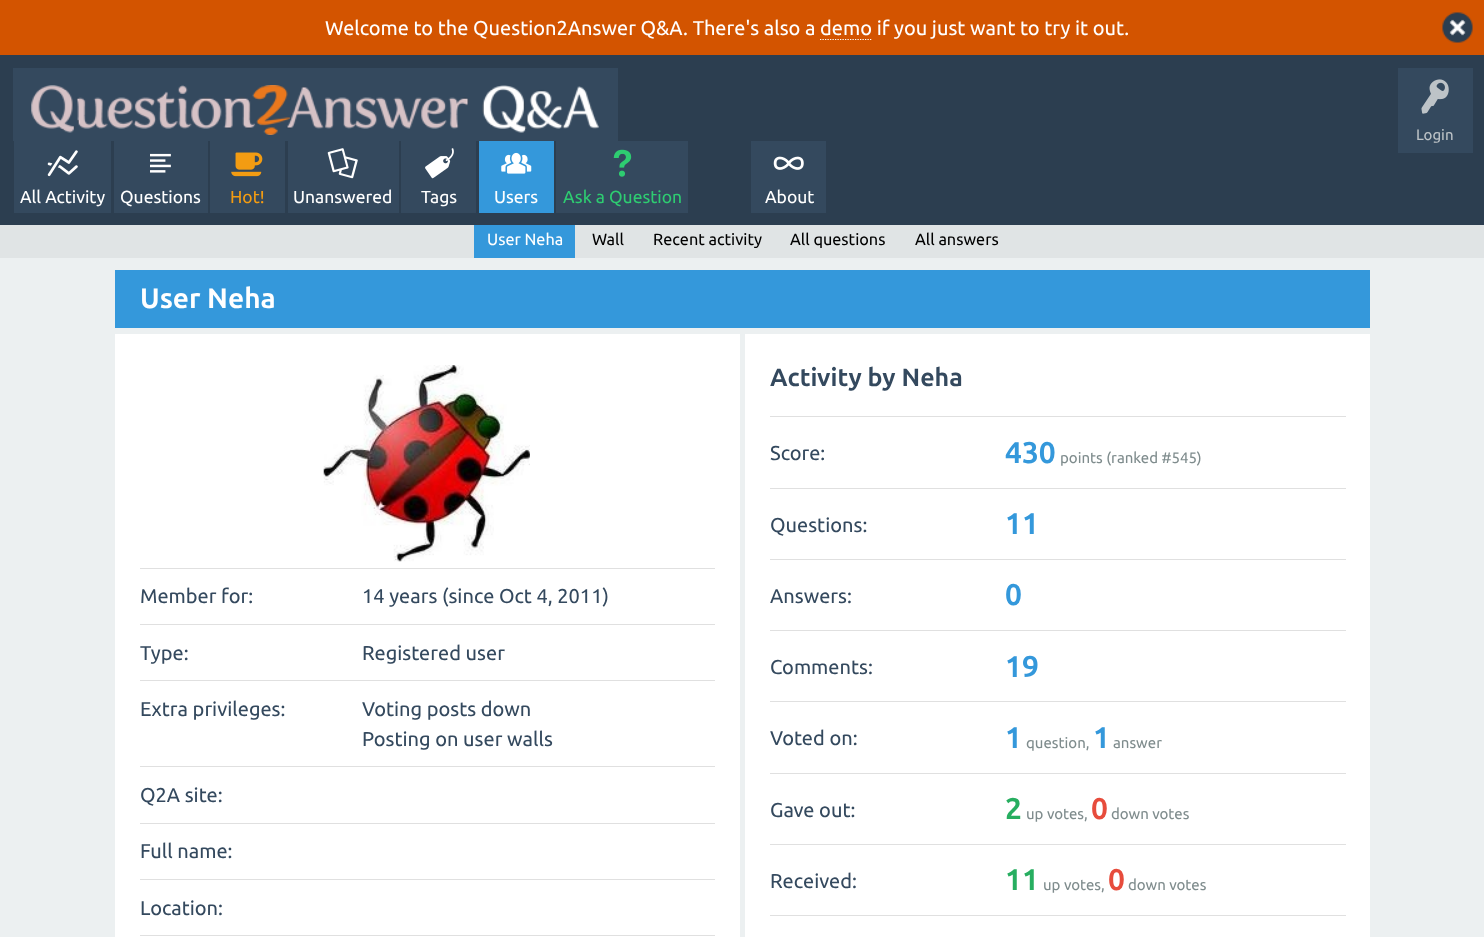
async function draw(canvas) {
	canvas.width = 1484;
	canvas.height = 937;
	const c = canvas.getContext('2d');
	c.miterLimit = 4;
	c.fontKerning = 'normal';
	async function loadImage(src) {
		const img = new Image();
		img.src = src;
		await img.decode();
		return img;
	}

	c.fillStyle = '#ecf0f1';
	c.fillRect(0, 0, 1484, 937);
	c.fillStyle = '#d35400';
	c.fillRect(0, 0, 1484, 55);
	c.font = '20px Ubuntu';
	c.fillStyle = '#fff';
	c.fillText('Welcome to the Question2Answer Q&A. There\'s also a demo if you just want to try it out.', 325, 35);
	c.drawImage(await loadImage('img1.png'), 1442, 12, 31, 31);
	c.beginPath();
	c.moveTo(820, 39.5);
	c.lineTo(872.5, 39.5);
	c.strokeStyle = '#fff';
	c.lineWidth = 1.2;
	c.setLineDash([1.25, 1.25]);
	c.stroke();
	c.fillStyle = '#2c3e50';
	c.fillRect(0, 55, 1484, 170);
	c.fillStyle = '#34495e';
	c.fillRect(13, 68, 605, 73);
	c.drawImage(await loadImage('img2.png'), 31, 85, 568, 50);
	c.fillRect(1398, 68, 75, 85);
	c.drawImage(await loadImage('img3.png'), 1421, 79, 28, 35);
	c.font = '15px Ubuntu';
	c.fillStyle = '#bdc3c7';
	c.fillText('Login', 1416, 140);
	c.fillStyle = '#34495e';
	c.fillRect(14, 141, 97, 72);
	c.drawImage(await loadImage('img4.png'), 47, 150, 31, 27);
	c.font = '17.5px Ubuntu';
	c.fillStyle = '#fff';
	c.fillText('All Activity', 20, 203);
	c.fillStyle = '#34495e';
	c.fillRect(114, 141, 94, 72);
	c.drawImage(await loadImage('img5.png'), 150, 153, 21, 20);
	c.fillStyle = '#fff';
	c.fillText('Questions', 120, 203);
	c.fillStyle = '#34495e';
	c.fillRect(210, 141, 75, 72);
	c.drawImage(await loadImage('img6.png'), 231, 152, 32, 25);
	c.fillStyle = '#f39c12';
	c.fillText('Hot!', 230, 203);
	c.fillStyle = '#34495e';
	c.fillRect(288, 141, 111, 72);
	c.drawImage(await loadImage('img7.png'), 327, 148, 31, 31);
	c.fillStyle = '#fff';
	c.fillText('Unanswered', 293, 203);
	c.fillStyle = '#34495e';
	c.fillRect(401, 141, 75, 72);
	c.drawImage(await loadImage('img8.png'), 425, 148, 29, 31);
	c.fillStyle = '#fff';
	c.fillText('Tags', 421, 203);
	c.fillStyle = '#3498db';
	c.fillRect(479, 141, 75, 72);
	c.drawImage(await loadImage('img9.png'), 501, 152, 31, 22);
	c.fillStyle = '#fff';
	c.fillText('Users', 494, 203);
	c.fillStyle = '#34495e';
	c.fillRect(556, 141, 132, 72);
	c.drawImage(await loadImage('img10.png'), 613, 149, 19, 28);
	c.fillStyle = '#2ecc71';
	c.fillText('Ask a Question', 563, 203);
	c.fillStyle = '#34495e';
	c.fillRect(751, 141, 75, 72);
	c.drawImage(await loadImage('img11.png'), 773, 156, 31, 14);
	c.fillStyle = '#fff';
	c.fillText('About', 765, 203);
	c.fillStyle = '#e0e4e5';
	c.fillRect(0, 225, 1484, 33);
	c.fillStyle = '#3498db';
	c.fillRect(474, 225, 101, 33);
	c.font = '16.25px Ubuntu';
	c.fillStyle = '#fff';
	c.fillText('User Neha', 487, 245);
	c.fillStyle = '#000';
	for (const [text, x, y] of [
		['Wall', 592, 245],
		['Recent activity', 653, 245],
		['All questions', 790, 245],
		['All answers', 915, 245],
	]) {
		c.fillText(text, x, y);
	}
	c.fillStyle = '#3498db';
	c.fillRect(115, 270, 1255, 58);
	c.font = 'bold 28px Ubuntu';
	c.fillStyle = '#fff';
	c.fillText('User Neha', 140, 308);
	c.fillRect(115, 334, 625, 603);
	c.drawImage(await loadImage('img12.png'), 323, 365, 207, 197);
	c.font = '20px Ubuntu';
	c.fillStyle = '#34495e';
	c.fillText('Member for:', 140, 603);
	c.fillStyle = '#e0e0e0';
	c.fillRect(140, 568, 575, 1);
	c.fillStyle = '#34495e';
	c.fillText('14 years (since Oct 4, 2011)', 362, 603);
	c.fillText('Type:', 140, 660);
	c.fillStyle = '#e0e0e0';
	c.fillRect(140, 624, 575, 1);
	c.fillStyle = '#34495e';
	c.fillText('Registered user', 362, 660);
	c.fillText('Extra privileges:', 140, 716);
	c.fillStyle = '#e0e0e0';
	c.fillRect(140, 680, 575, 1);
	c.fillStyle = '#34495e';
	c.fillText('Voting posts down', 362, 716);
	c.fillText('Posting on user walls', 362, 746);
	c.fillStyle = '#e0e0e0';
	c.fillRect(140, 766, 575, 1);
	c.fillStyle = '#34495e';
	c.fillText('Q2A site:', 140, 802);
	c.fillStyle = '#e0e0e0';
	c.fillRect(140, 823, 575, 1);
	c.fillStyle = '#34495e';
	c.fillText('Full name:', 140, 858);
	c.fillStyle = '#e0e0e0';
	c.fillRect(140, 879, 575, 1);
	c.fillStyle = '#34495e';
	c.fillText('Location:', 140, 915);
	c.fillStyle = '#e0e0e0';
	c.fillRect(140, 935, 575, 1);
	c.fillStyle = '#fff';
	c.fillRect(745, 334, 625, 603);
	c.font = 'bold 25px Ubuntu';
	c.fillStyle = '#34495e';
	c.fillText('Activity by Neha', 770, 386);
	c.font = '20px Ubuntu';
	c.fillText('Score:', 770, 460);
	c.fillStyle = '#e0e0e0';
	c.fillRect(770, 416, 576, 1);
	c.font = 'bold 30px Ubuntu';
	c.fillStyle = '#3498db';
	c.fillText('430', 1005, 463);
	c.font = '15px Ubuntu';
	c.fillStyle = '#7f8c8d';
	c.fillText('points (ranked #545)', 1060, 463);
	c.font = '20px Ubuntu';
	c.fillStyle = '#34495e';
	c.fillText('Questions:', 770, 532);
	c.fillStyle = '#e0e0e0';
	c.fillRect(770, 488, 576, 1);
	c.font = 'bold 30px Ubuntu';
	c.fillStyle = '#3498db';
	c.fillText('11', 1005, 534);
	c.font = '20px Ubuntu';
	c.fillStyle = '#34495e';
	c.fillText('Answers:', 770, 603);
	c.fillStyle = '#e0e0e0';
	c.fillRect(770, 559, 576, 1);
	c.font = 'bold 30px Ubuntu';
	c.fillStyle = '#3498db';
	c.fillText('0', 1005, 605);
	c.font = '20px Ubuntu';
	c.fillStyle = '#34495e';
	c.fillText('Comments:', 770, 674);
	c.fillStyle = '#e0e0e0';
	c.fillRect(770, 630, 576, 1);
	c.font = 'bold 30px Ubuntu';
	c.fillStyle = '#3498db';
	c.fillText('19', 1005, 677);
	c.font = '20px Ubuntu';
	c.fillStyle = '#34495e';
	c.fillText('Voted on:', 770, 745);
	c.fillStyle = '#e0e0e0';
	c.fillRect(770, 701, 576, 1);
	c.font = 'bold 30px Ubuntu';
	c.fillStyle = '#3498db';
	c.fillText('1', 1005, 748);
	c.font = '15px Ubuntu';
	c.fillStyle = '#7f8c8d';
	c.fillText('question,', 1026, 748);
	c.font = 'bold 30px Ubuntu';
	c.fillStyle = '#3498db';
	c.fillText('1', 1093, 748);
	c.font = '15px Ubuntu';
	c.fillStyle = '#7f8c8d';
	c.fillText('answer', 1113, 748);
	c.font = '20px Ubuntu';
	c.fillStyle = '#34495e';
	c.fillText('Gave out:', 770, 817);
	c.fillStyle = '#e0e0e0';
	c.fillRect(770, 773, 576, 1);
	c.font = 'bold 30px Ubuntu';
	c.fillStyle = '#27ae60';
	c.fillText('2', 1005, 819);
	c.font = '15px Ubuntu';
	c.fillStyle = '#7f8c8d';
	c.fillText('up votes,', 1026, 819);
	c.font = 'bold 30px Ubuntu';
	c.fillStyle = '#e74c3c';
	c.fillText('0', 1091, 819);
	c.font = '15px Ubuntu';
	c.fillStyle = '#7f8c8d';
	c.fillText('down votes', 1111, 819);
	c.font = '20px Ubuntu';
	c.fillStyle = '#34495e';
	c.fillText('Received:', 770, 888);
	c.fillStyle = '#e0e0e0';
	c.fillRect(770, 844, 576, 1);
	c.fillRect(770, 915, 576, 1);
	c.font = 'bold 30px Ubuntu';
	c.fillStyle = '#27ae60';
	c.fillText('11', 1005, 890);
	c.font = '15px Ubuntu';
	c.fillStyle = '#7f8c8d';
	c.fillText('up votes,', 1043, 890);
	c.font = 'bold 30px Ubuntu';
	c.fillStyle = '#e74c3c';
	c.fillText('0', 1108, 890);
	c.font = '15px Ubuntu';
	c.fillStyle = '#7f8c8d';
	c.fillText('down votes', 1128, 890);
}

draw(document.querySelector('canvas'));
